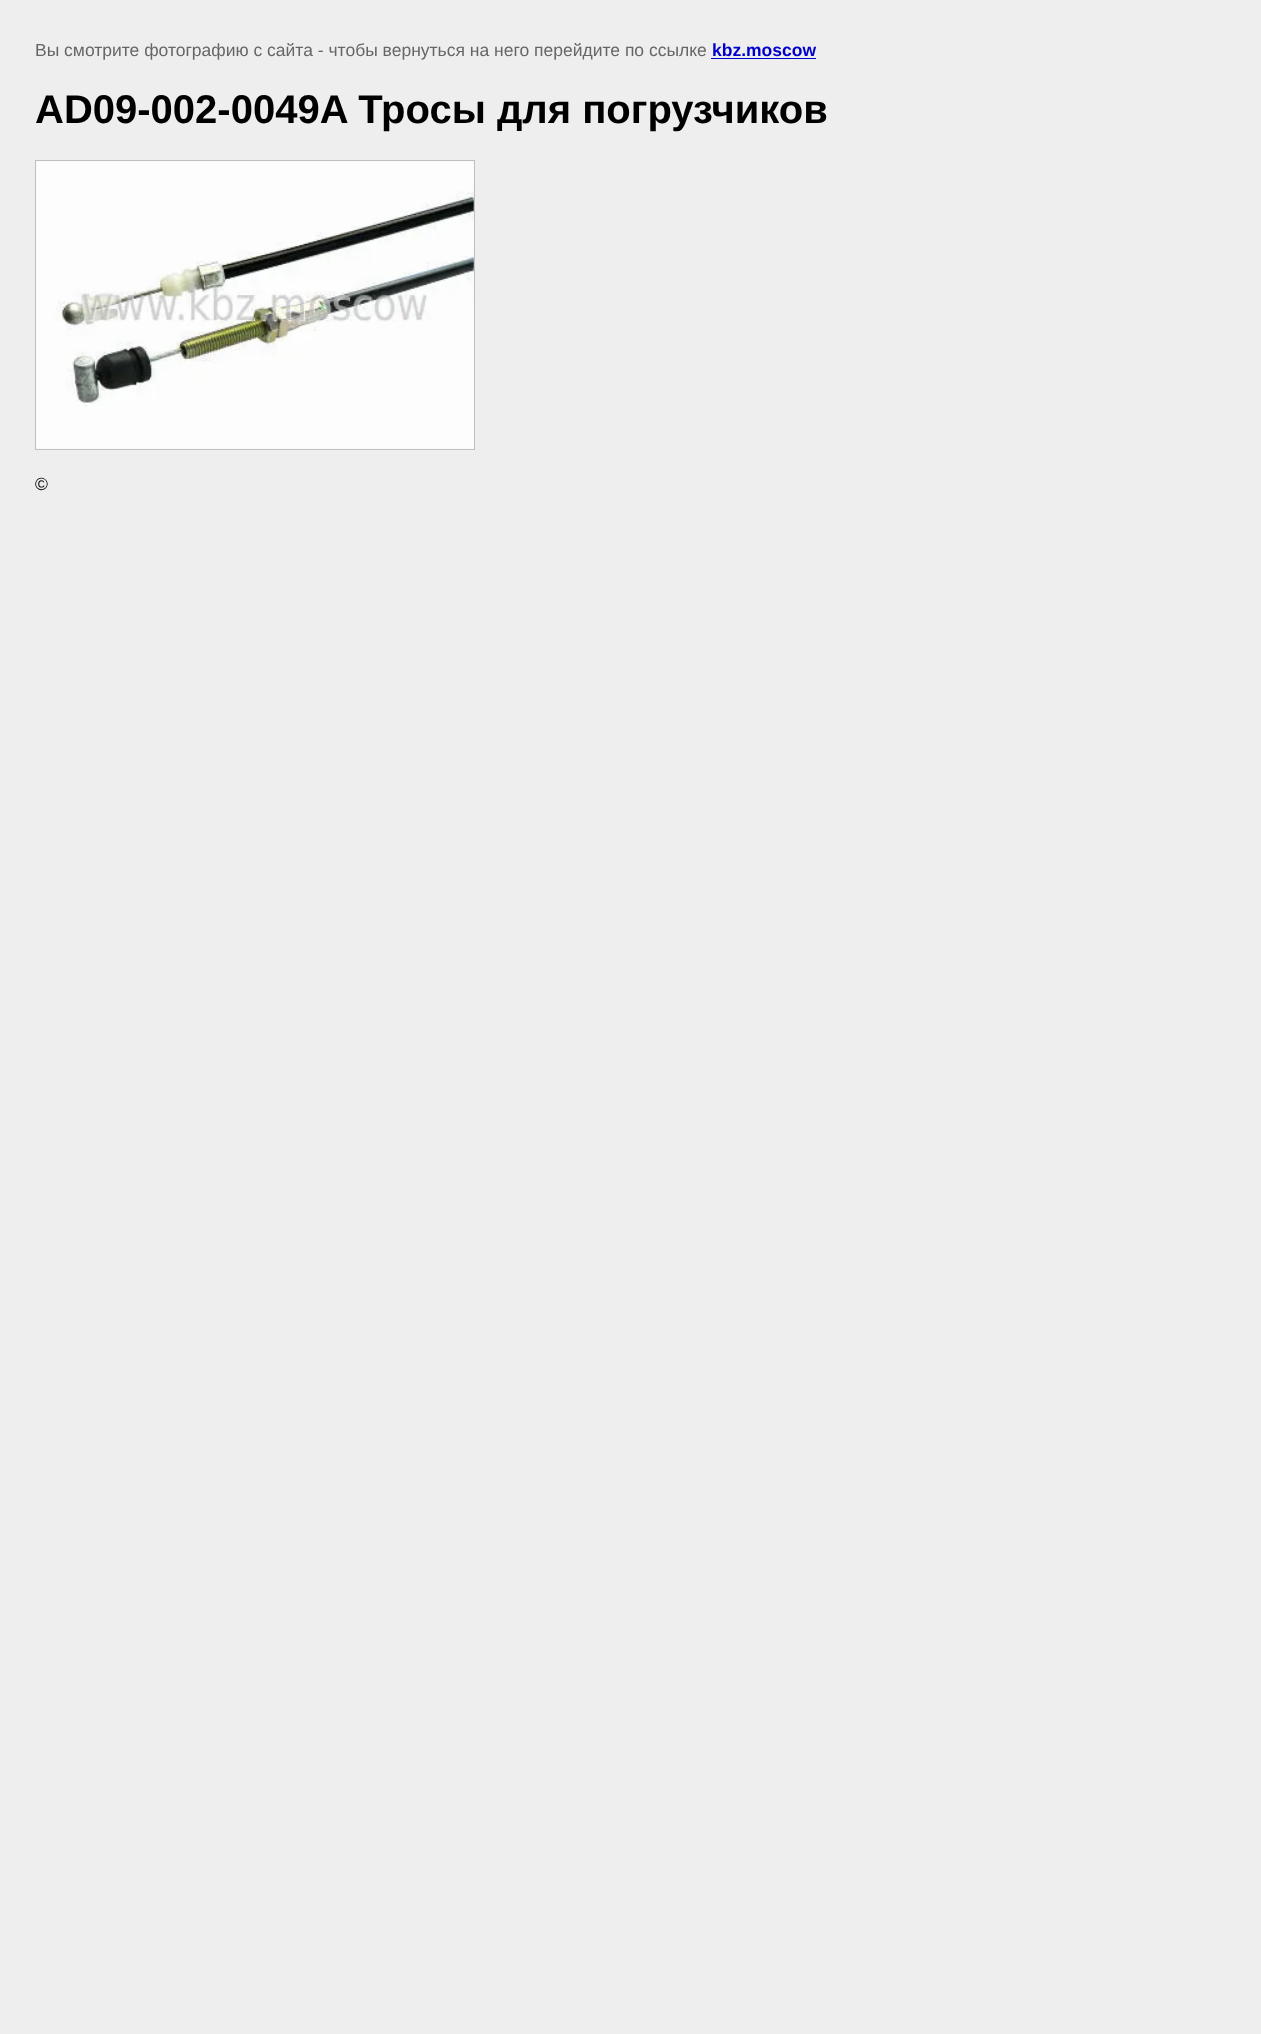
async function draw(canvas) {
	canvas.width = 1261;
	canvas.height = 2034;
	const c = canvas.getContext('2d');
	c.miterLimit = 4;
	c.fontKerning = 'normal';
	async function loadImage(src) {
		const img = new Image();
		img.src = src;
		await img.decode();
		return img;
	}

	c.fillStyle = '#eee';
	c.fillRect(0, 0, 1261, 2034);
	c.font = '17.5px Liberation Sans';
	c.fillStyle = '#666';
	c.fillText('Вы смотрите фотографию с сайта - чтобы вернуться на него перейдите по ссылке', 35, 56);
	c.font = 'bold 17.5px Liberation Sans';
	c.fillStyle = '#00c';
	c.fillText('kbz.moscow', 712, 56);
	c.fillRect(711, 58, 105, 1);
	c.font = 'bold 40px Liberation Sans';
	c.fillStyle = '#000';
	c.fillText('AD09-002-0049A Тросы для погрузчиков', 35, 123);
	c.strokeStyle = '#c0c0c0';
	c.strokeRect(35.5, 160.5, 439, 289);
	c.drawImage(await loadImage('img1.png'), 36, 161, 438, 288);
	c.font = '17.5px Liberation Sans';
	c.fillText('©', 35, 490);
}

draw(document.querySelector('canvas'));
